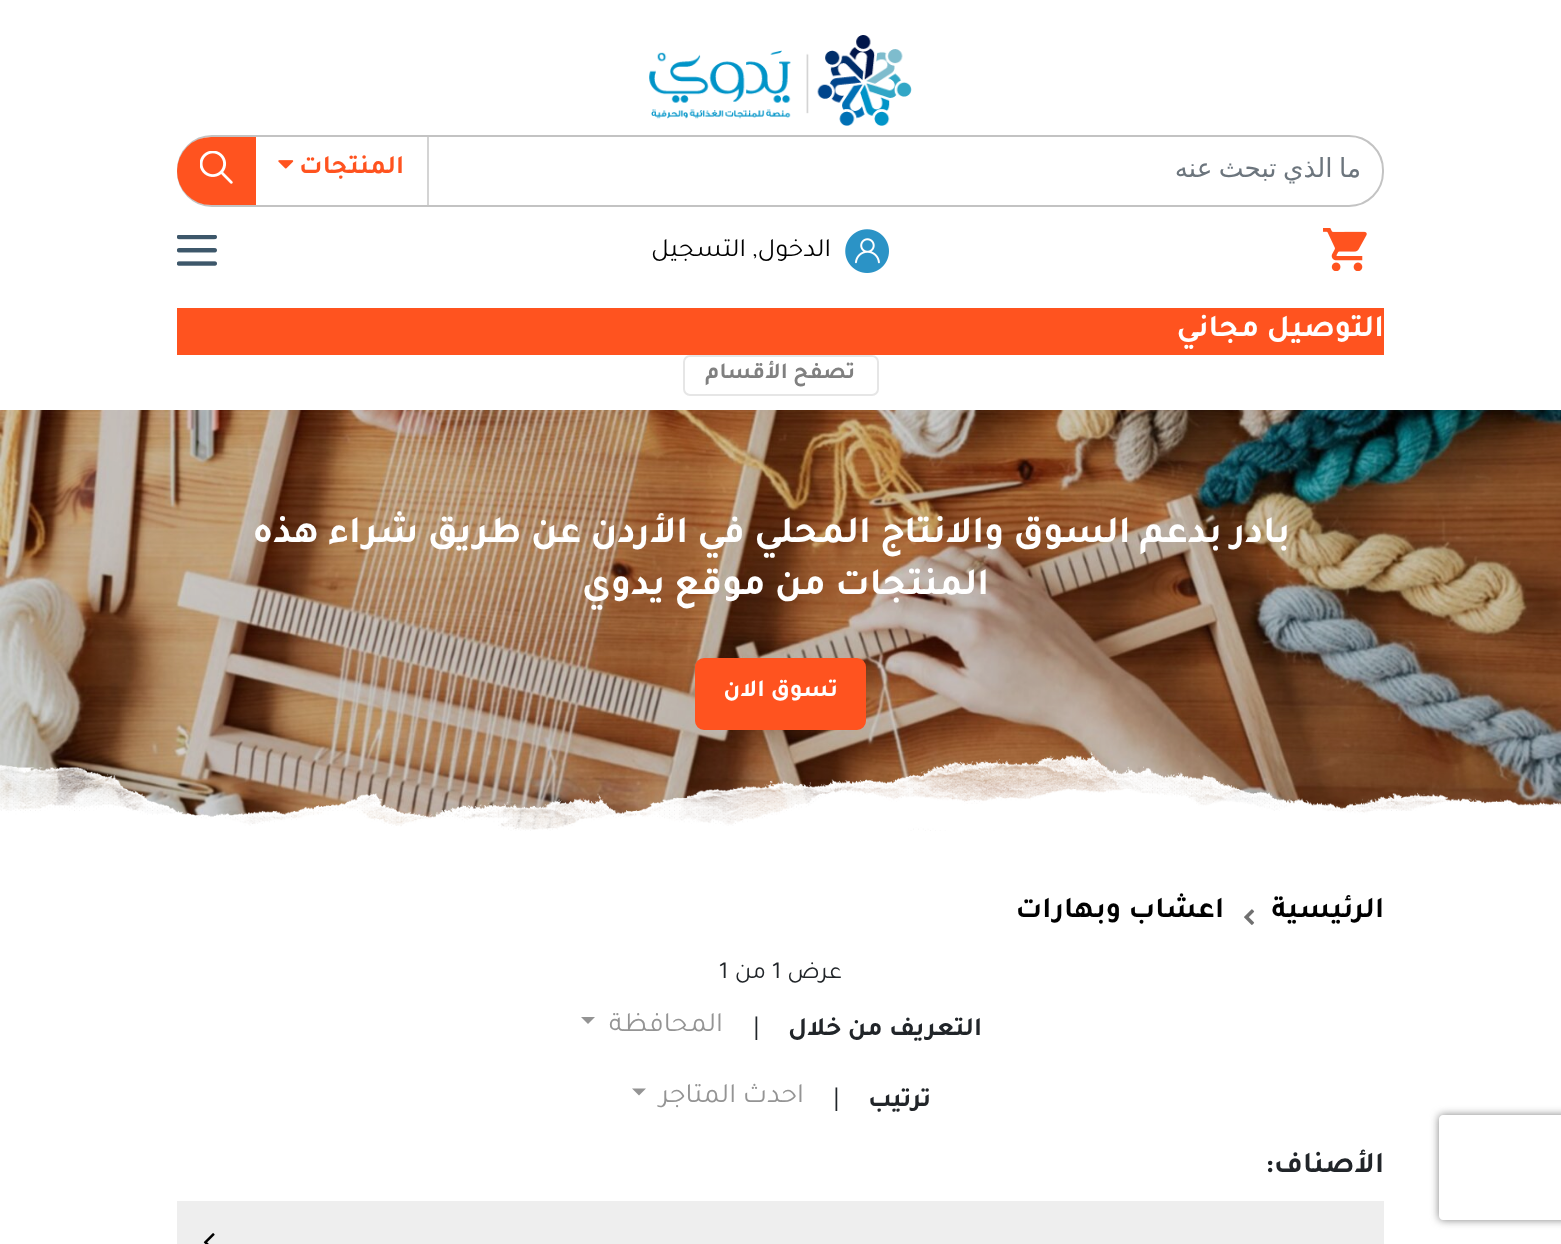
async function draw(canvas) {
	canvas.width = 1561;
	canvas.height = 1244;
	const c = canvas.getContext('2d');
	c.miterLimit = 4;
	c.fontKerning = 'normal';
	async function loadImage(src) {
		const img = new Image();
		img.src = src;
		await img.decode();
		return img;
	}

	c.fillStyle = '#fff';
	c.fillRect(0, 0, 1561, 1244);
	c.drawImage(await loadImage('img1.png'), 649, 35, 263, 91);
	c.beginPath();
	c.roundRect(178, 136, 1205, 70, 34);
	c.strokeStyle = '#c3c3c3';
	c.lineWidth = 2;
	c.stroke();
	c.save();
	c.beginPath();
	c.rect(450, 152, 912, 32);
	c.clip();
	c.wordSpacing = '-2px';
	c.direction = 'rtl';
	c.font = '26.25px DejaVu Sans';
	c.fillStyle = '#6c757d';
	c.fillText('ما الذي تبحث عنه', 1361, 177);
	c.restore();
	c.fillStyle = '#d4d4d4';
	c.fillRect(427, 137, 2, 68);
	c.direction = 'rtl';
	c.font = 'bold 26.25px Tajawal';
	c.fillStyle = '#ff531f';
	c.fillText('المنتجات', 404, 173);
	c.drawImage(await loadImage('img2.png'), 278, 160, 16, 9);
	c.beginPath();
	c.roundRect(177, 137, 79, 68, [34, 0, 0, 34]);
	c.fill();
	c.drawImage(await loadImage('img3.png'), 200, 151, 33, 33);
	c.drawImage(await loadImage('img4.png'), 1323, 228, 44, 43);
	c.drawImage(await loadImage('img5.png'), 845, 229, 44, 44);
	c.font = '26.25px Tajawal';
	c.fillStyle = '#000';
	c.fillText('الدخول, التسجيل', 831, 256);
	c.drawImage(await loadImage('img6.png'), 177, 235, 40, 31);
	c.fillStyle = '#ff531f';
	c.fillRect(177, 308, 1207, 47);
	c.font = 'bold 31.5px Tajawal';
	c.fillStyle = '#fff';
	c.fillText('التوصيل مجاني', 1384, 336);
	c.beginPath();
	c.roundRect(684, 356, 194, 39, 6);
	c.strokeStyle = '#e6e6e6';
	c.stroke();
	c.font = 'bold 22.75px Tajawal';
	c.fillStyle = '#808080';
	c.fillText('تصفح الأقسام', 855, 378);
	c.save();
	c.beginPath();
	c.moveTo(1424, 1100);
	c.lineTo(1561, 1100);
	c.lineTo(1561, 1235);
	c.lineTo(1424, 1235);
	c.closePath();
	c.moveTo(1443, 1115);
	c.lineTo(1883, 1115);
	c.bezierCurveTo(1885, 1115, 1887, 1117, 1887, 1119);
	c.lineTo(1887, 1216);
	c.bezierCurveTo(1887, 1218, 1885, 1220, 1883, 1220);
	c.lineTo(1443, 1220);
	c.bezierCurveTo(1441, 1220, 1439, 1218, 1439, 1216);
	c.lineTo(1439, 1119);
	c.bezierCurveTo(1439, 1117, 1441, 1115, 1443, 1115);
	c.closePath();
	c.clip('evenodd');
	c.filter = 'blur(4.5px)';
	c.beginPath();
	c.roundRect(1439, 1115, 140, 105, 4);
	c.fill();
	c.filter = 'none';
	c.restore();
	c.drawImage(await loadImage('img7.png'), 0, 410, 1561, 420);
	c.font = 'bold 38.5px Tajawal';
	c.fillStyle = '#fff';
	c.fillText('بادر بدعم السوق والانتاج المحلي في الأردن عن طريق شراء هذه', 1290, 542);
	c.fillText('المنتجات من موقع يدوي', 989, 594);
	c.fillStyle = '#ff531f';
	c.beginPath();
	c.roundRect(696, 659, 169, 70, 8);
	c.fill();
	c.strokeStyle = '#ff531f';
	c.stroke();
	c.font = 'bold 24.5px Tajawal';
	c.fillStyle = '#fff';
	c.fillText('تسوق الان', 838, 696);
	c.drawImage(await loadImage('img8.png'), 0, 751, 1561, 80);
	c.font = 'bold 29.75px Tajawal';
	c.fillStyle = '#000';
	c.fillText('الرئيسية', 1384, 917);
	c.drawImage(await loadImage('img9.png'), 1244, 909, 11, 16);
	c.fillText('اعشاب وبهارات', 1224, 917);
	c.font = '24.5px Tajawal';
	c.fillStyle = '#212529';
	c.fillText('عرض', 842, 978);
	c.direction = 'ltr';
	c.fillText('1', 772, 978);
	c.direction = 'rtl';
	c.fillText('من', 766, 978);
	c.direction = 'ltr';
	c.fillText('1', 719, 978);
	c.direction = 'rtl';
	c.font = 'bold 26.25px Tajawal';
	c.fillText('التعريف من خلال', 982, 1035);
	c.direction = 'ltr';
	c.font = '28px Tajawal';
	c.fillText('|', 753, 1035);
	c.direction = 'rtl';
	c.fillStyle = '#949494';
	c.fillText('المحافظة', 723, 1031);
	c.beginPath();
	c.moveTo(581, 1017);
	c.lineTo(595, 1017);
	c.lineTo(588, 1024);
	c.closePath();
	c.fill();
	c.font = 'bold 26.25px Tajawal';
	c.fillStyle = '#212529';
	c.fillText('ترتيب', 931, 1106);
	c.direction = 'ltr';
	c.font = '28px Tajawal';
	c.fillText('|', 833, 1106);
	c.direction = 'rtl';
	c.fillStyle = '#949494';
	c.fillText('احدث المتاجر', 804, 1102);
	c.beginPath();
	c.moveTo(632, 1088.5);
	c.lineTo(646, 1088.5);
	c.lineTo(639, 1095.5);
	c.closePath();
	c.fill();
	c.font = 'bold 29.75px Tajawal';
	c.fillStyle = '#212529';
	c.fillText('الأصناف:', 1384, 1172);
	c.fillStyle = '#eee';
	c.fillRect(177, 1201, 1207, 43);
	c.drawImage(await loadImage('img10.png'), 203, 1233, 12, 11);
}

draw(document.querySelector('canvas'));
